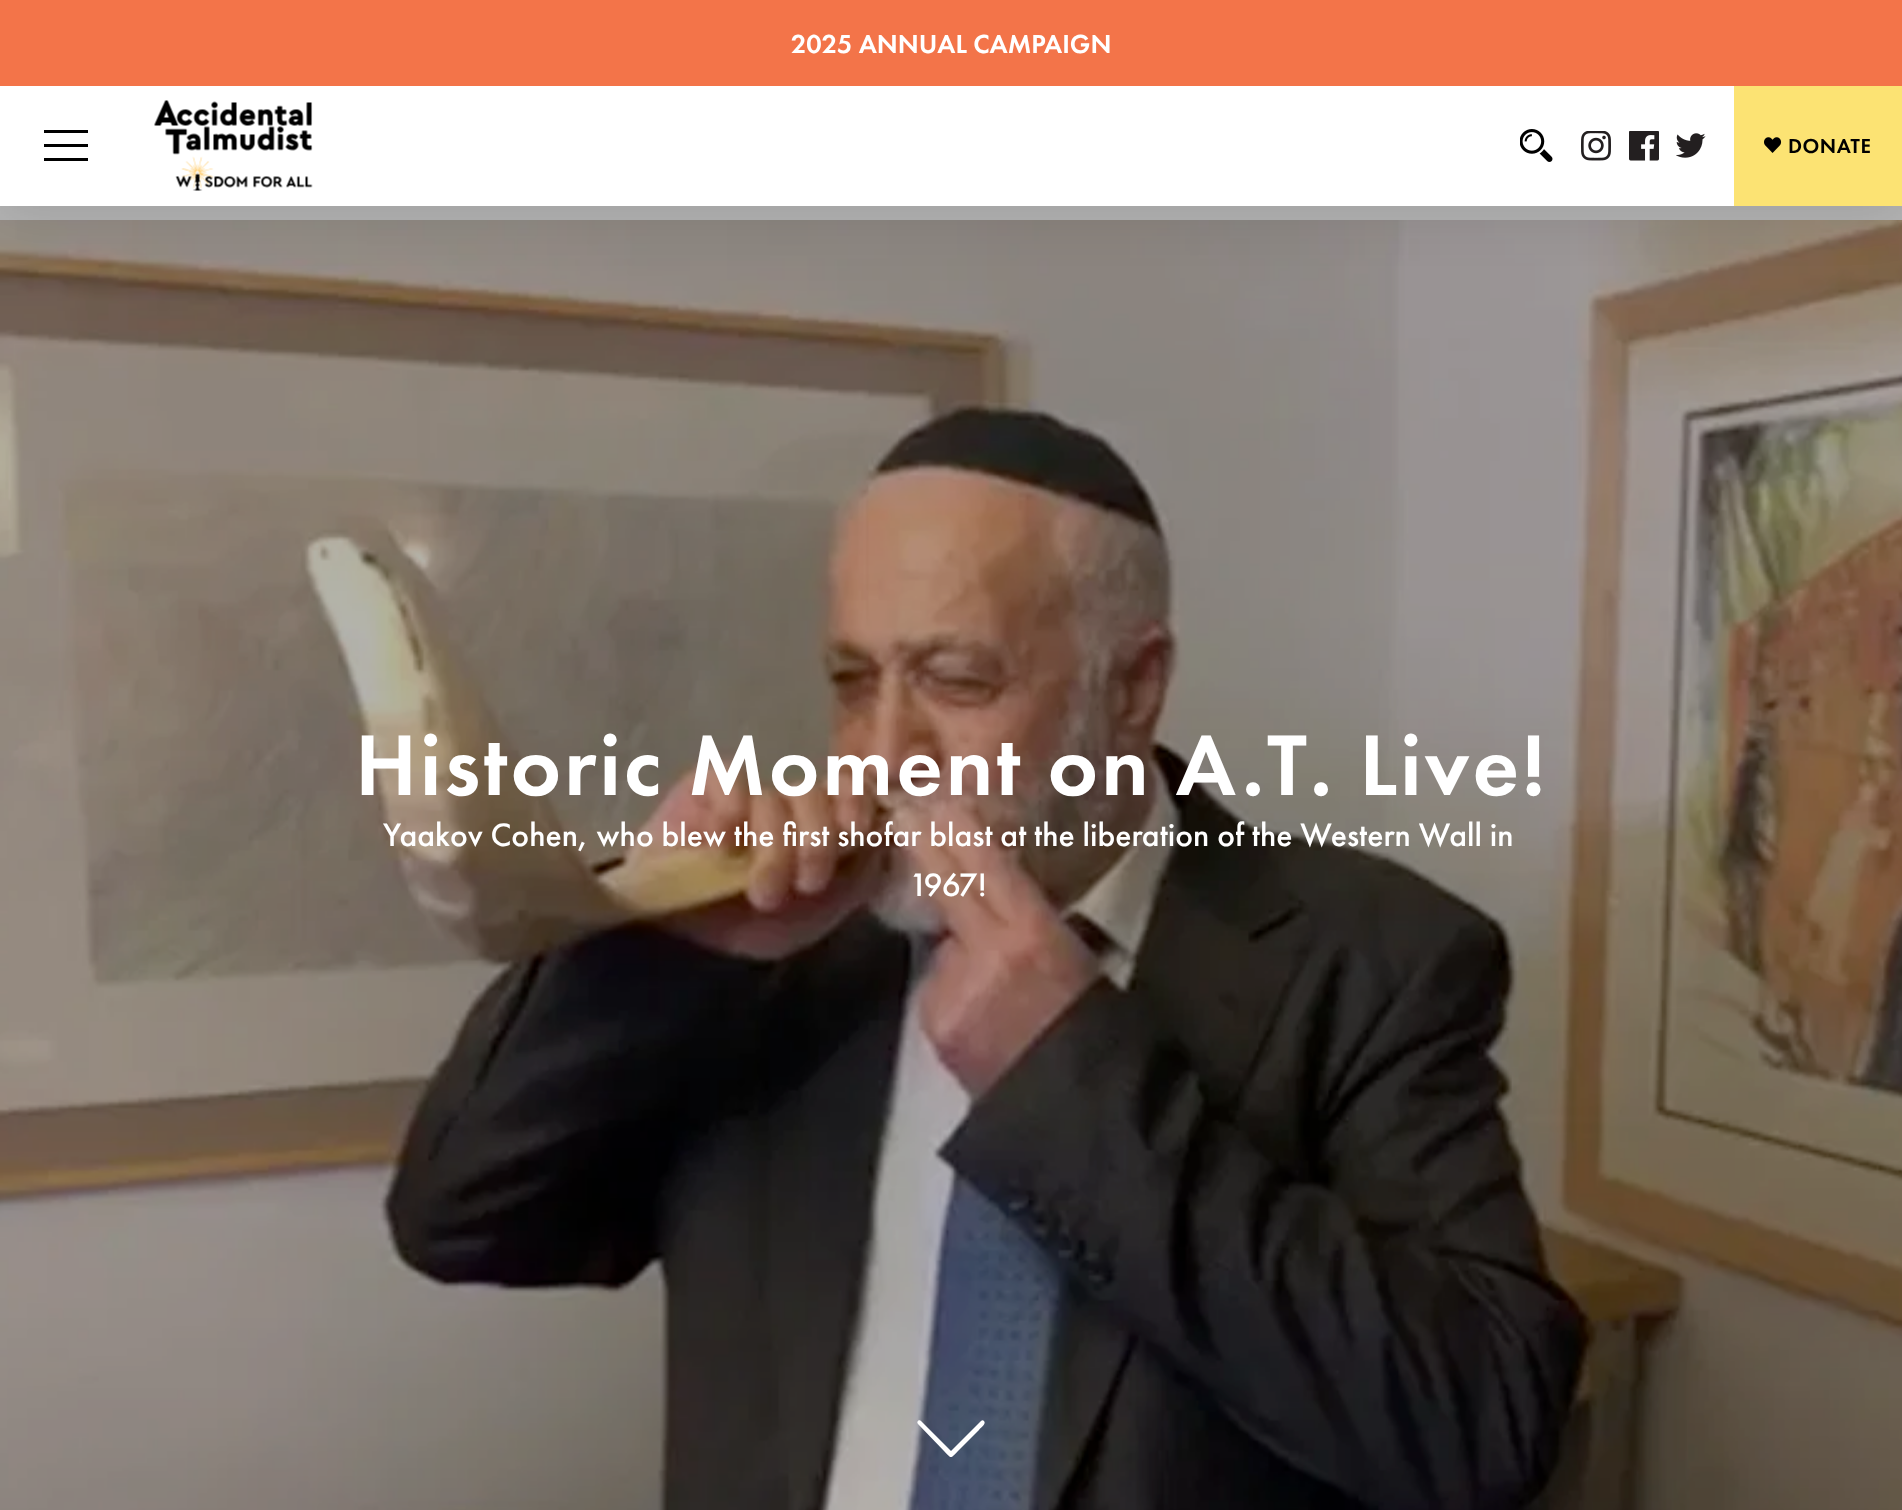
async function draw(canvas) {
	canvas.width = 1902;
	canvas.height = 1510;
	const c = canvas.getContext('2d');
	c.miterLimit = 4;
	c.fontKerning = 'normal';
	async function loadImage(src) {
		const img = new Image();
		img.src = src;
		await img.decode();
		return img;
	}

	c.fillStyle = '#b3b3b3';
	c.fillRect(0, 0, 1902, 1510);
	c.drawImage(await loadImage('img7.png'), 0, 220, 1902, 1290);
	c.fillStyle = '#0000001a';
	c.filter = 'blur(26px)';
	c.beginPath();
	c.rect(0, 11, 1902, 205);
	c.fill();
	c.filter = 'none';
	c.fillStyle = '#fff';
	c.fillRect(0, 86, 1734, 120);
	c.fillStyle = '#f37449';
	c.fillRect(0, 0, 1902, 86);
	c.font = '500 27px Futura PT';
	c.fillStyle = '#fff';
	c.fillText('2025 ANNUAL CAMPAIGN', 791, 53);
	c.fillStyle = '#000';
	c.beginPath();
	c.moveTo(44, 130);
	c.lineTo(44, 133);
	c.lineTo(88, 133);
	c.lineTo(88, 130);
	c.closePath();
	c.moveTo(44, 147);
	c.lineTo(88, 147);
	c.lineTo(88, 144);
	c.lineTo(44, 144);
	c.closePath();
	c.moveTo(44, 161);
	c.lineTo(88, 161);
	c.lineTo(88, 158);
	c.lineTo(44, 158);
	c.closePath();
	c.fill();
	c.drawImage(await loadImage('img1.png'), 154, 100, 159, 91);
	c.drawImage(await loadImage('img2.png'), 1520, 129, 33, 33);
	c.drawImage(await loadImage('img3.png'), 1581, 131, 30, 30);
	c.drawImage(await loadImage('img4.png'), 1629, 131, 30, 30);
	c.drawImage(await loadImage('img5.png'), 1676, 133, 30, 25);
	c.fillStyle = '#fce373';
	c.fillRect(1734, 86, 168, 120);
	c.drawImage(await loadImage('img6.png'), 1764, 137, 18, 16);
	c.letterSpacing = '0.5px';
	c.font = '500 21px Futura PT';
	c.fillStyle = '#000';
	c.fillText('DONATE', 1788, 153);
	c.letterSpacing = '3px';
	c.font = '500 89.4px Futura PT';
	c.fillStyle = '#fff';
	c.fillText('Historic Moment on A.T. Live!', 355, 795);
	c.letterSpacing = '0px';
	c.font = '500 33.6px "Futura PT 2"';
	c.fillText('Yaakov Cohen, who blew the first shofar blast at the liberation of the Western Wall in', 383, 846);
	c.fillText('1967!', 909, 896);
	c.beginPath();
	c.moveTo(984, 1421);
	c.bezierCurveTo(983, 1420, 982, 1420, 981, 1421);
	c.lineTo(951, 1451);
	c.lineTo(921, 1421);
	c.bezierCurveTo(919, 1419, 916, 1422, 918, 1424);
	c.lineTo(944, 1451);
	c.bezierCurveTo(952, 1459, 950, 1459, 958, 1451);
	c.lineTo(979, 1430);
	c.bezierCurveTo(979, 1429, 987, 1424, 984, 1421);
	c.closePath();
	c.fill();
}

draw(document.querySelector('canvas'));
